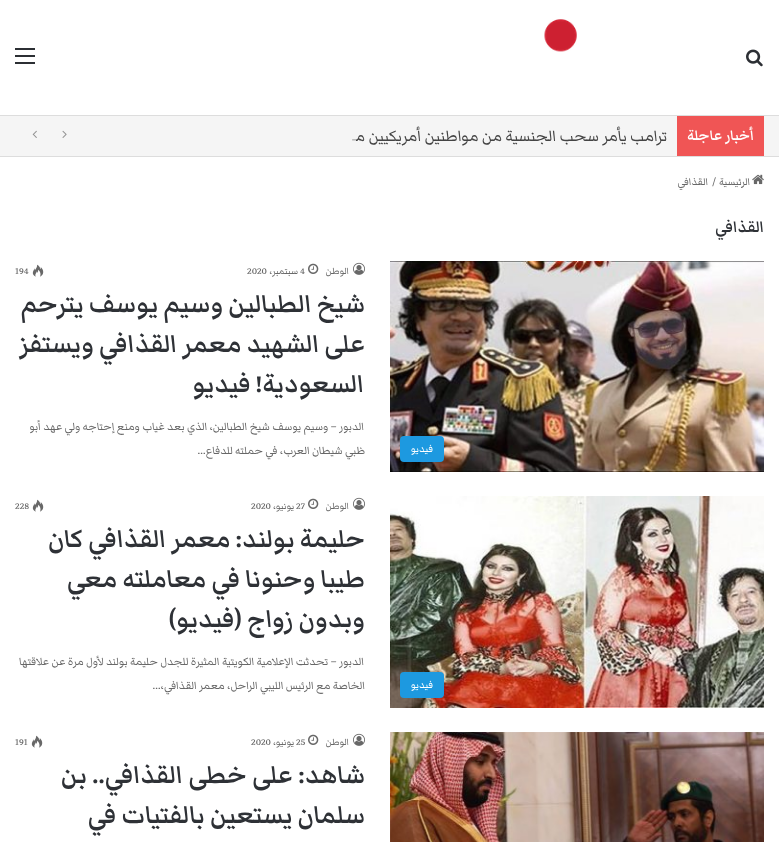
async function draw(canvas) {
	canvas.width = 779;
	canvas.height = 842;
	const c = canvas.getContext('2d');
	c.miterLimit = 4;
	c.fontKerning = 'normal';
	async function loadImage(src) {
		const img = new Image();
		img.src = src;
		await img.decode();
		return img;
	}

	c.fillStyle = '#fff';
	c.fillRect(0, 0, 779, 842);
	c.drawImage(await loadImage('img1.png'), 544, 19, 33, 33);
	c.drawImage(await loadImage('img2.png'), 746, 49, 17, 18);
	for (const [x, y, w, h, color] of [
		[15, 55, 20, 2, '#2c2f34'],
		[15, 48, 20, 2, '#2c2f34'],
		[15, 62, 20, 2, '#2c2f34'],
		[0, 116, 779, 40, '#f5f5f5'],
		[0, 115, 779, 1, '#ddd'],
		[0, 156, 779, 1, '#ddd'],
		[677, 116, 87, 40, '#f05555'],
	]) {
		c.fillStyle = color;
		c.fillRect(x, y, w, h);
	}
	c.direction = 'rtl';
	c.font = '600 18px Markazi Text';
	c.fillStyle = '#fff';
	c.fillText('أخبار عاجلة', 754, 140);
	c.font = '20px Markazi Text';
	c.fillStyle = '#444';
	c.fillText('ترامب يأمر سحب الجنسية من مواطنين أمريكيين مجنّسين', 667, 141);
	c.fillStyle = '#f5f5f5';
	c.fillRect(310, 128, 46, 17);
	c.direction = 'ltr';
	c.font = '13px Markazi Text';
	c.fillStyle = '#777';
	c.fillText('_', 352, 139);
	c.drawImage(await loadImage('img3.png'), 62, 130, 5, 8);
	c.drawImage(await loadImage('img4.png'), 32, 130, 5, 8);
	c.drawImage(await loadImage('img5.png'), 752, 174, 12, 11);
	c.direction = 'rtl';
	c.fillStyle = '#686868';
	c.fillText('الرئيسية', 750, 185);
	c.direction = 'ltr';
	c.fillText('/', 712, 185);
	c.direction = 'rtl';
	c.fillText('القذافي', 708, 185);
	c.font = '600 20px Markazi Text';
	c.fillStyle = '#2e3136';
	c.fillText('القذافي', 764, 232);
	c.drawImage(await loadImage('img6.png'), 390, 261, 374, 211);
	c.fillStyle = '#1d99e0';
	c.beginPath();
	c.roundRect(400, 436, 44, 26, 4);
	c.fill();
	c.font = '13px Markazi Text';
	c.fillStyle = '#fff';
	c.fillText('فيديو', 433, 452);
	c.drawImage(await loadImage('img7.png'), 353, 262, 12, 13);
	c.font = '12px Markazi Text';
	c.fillStyle = '#686868';
	c.fillText('الوطن', 349, 274);
	c.drawImage(await loadImage('img8.png'), 308, 263, 11, 11);
	c.direction = 'ltr';
	c.fillText('4', 300, 274);
	c.direction = 'rtl';
	c.fillText('سبتمبر،', 298, 274);
	c.direction = 'ltr';
	c.fillText('2020', 247, 274);
	c.drawImage(await loadImage('img9.png'), 32, 264, 12, 13);
	c.fillText('194', 15, 274);
	c.direction = 'rtl';
	c.font = '600 32px Markazi Text';
	c.fillStyle = '#2e3136';
	for (const [text, x, y] of [
		['شيخ الطبالين وسيم يوسف يترحم', 365, 312],
		['على الشهيد معمر القذافي ويستفز', 365, 352],
		['السعودية! فيديو', 364, 392],
	]) {
		c.fillText(text, x, y);
	}
	c.font = '14px Markazi Text';
	c.fillStyle = '#686868';
	c.fillText('الدبور – وسيم يوسف شيخ الطبالين، الذي بعد غياب ومنع إحتاجه ولي عهد أبو', 364, 430);
	c.fillText('ظبي شيطان العرب، في حملته للدفاع…', 365, 454);
	c.drawImage(await loadImage('img10.png'), 390, 496, 374, 212);
	c.fillStyle = '#1d99e0';
	c.beginPath();
	c.roundRect(400, 672, 44, 26, 4);
	c.fill();
	c.font = '13px Markazi Text';
	c.fillStyle = '#fff';
	c.fillText('فيديو', 433, 688);
	c.drawImage(await loadImage('img7.png'), 353, 497, 12, 13);
	c.font = '12px Markazi Text';
	c.fillStyle = '#686868';
	c.fillText('الوطن', 349, 509);
	c.drawImage(await loadImage('img8.png'), 308, 498, 11, 11);
	c.direction = 'ltr';
	c.fillText('27', 296, 509);
	c.direction = 'rtl';
	c.fillText('يونيو،', 294, 509);
	c.direction = 'ltr';
	c.fillText('2020', 251, 509);
	c.drawImage(await loadImage('img9.png'), 32, 499, 12, 13);
	c.fillText('228', 15, 509);
	c.direction = 'rtl';
	c.font = '600 32px Markazi Text';
	c.fillStyle = '#2e3136';
	for (const [text, x, y] of [
		['حليمة بولند: معمر القذافي كان', 365, 547],
		['طيبا وحنونا في معاملته معي', 365, 587],
		['وبدون زواج (فيديو)', 365, 627],
	]) {
		c.fillText(text, x, y);
	}
	c.font = '14px Markazi Text';
	c.fillStyle = '#686868';
	c.fillText('الدبور – تحدثت الإعلامية الكويتية المثيرة للجدل حليمة بولند لأول مرة عن علاقتها', 364, 665);
	c.fillText('الخاصة مع الرئيس الليبي الراحل، معمر القذافي،…', 365, 689);
	c.drawImage(await loadImage('img11.png'), 390, 732, 374, 110);
	c.drawImage(await loadImage('img7.png'), 353, 733, 12, 13);
	c.font = '12px Markazi Text';
	c.fillText('الوطن', 349, 745);
	c.drawImage(await loadImage('img8.png'), 308, 734, 11, 11);
	c.direction = 'ltr';
	c.fillText('25', 296, 745);
	c.direction = 'rtl';
	c.fillText('يونيو،', 294, 745);
	c.direction = 'ltr';
	c.fillText('2020', 251, 745);
	c.drawImage(await loadImage('img9.png'), 31, 735, 12, 13);
	c.fillText('191', 15, 745);
	c.wordSpacing = '0.5px';
	c.direction = 'rtl';
	c.font = '600 32px Markazi Text';
	c.fillStyle = '#2e3136';
	c.fillText('شاهد: على خطى القذافي.. بن', 365, 783);
	c.wordSpacing = '0px';
	c.fillText('سلمان يستعين بالفتيات في', 365, 823);
}

draw(document.querySelector('canvas'));
